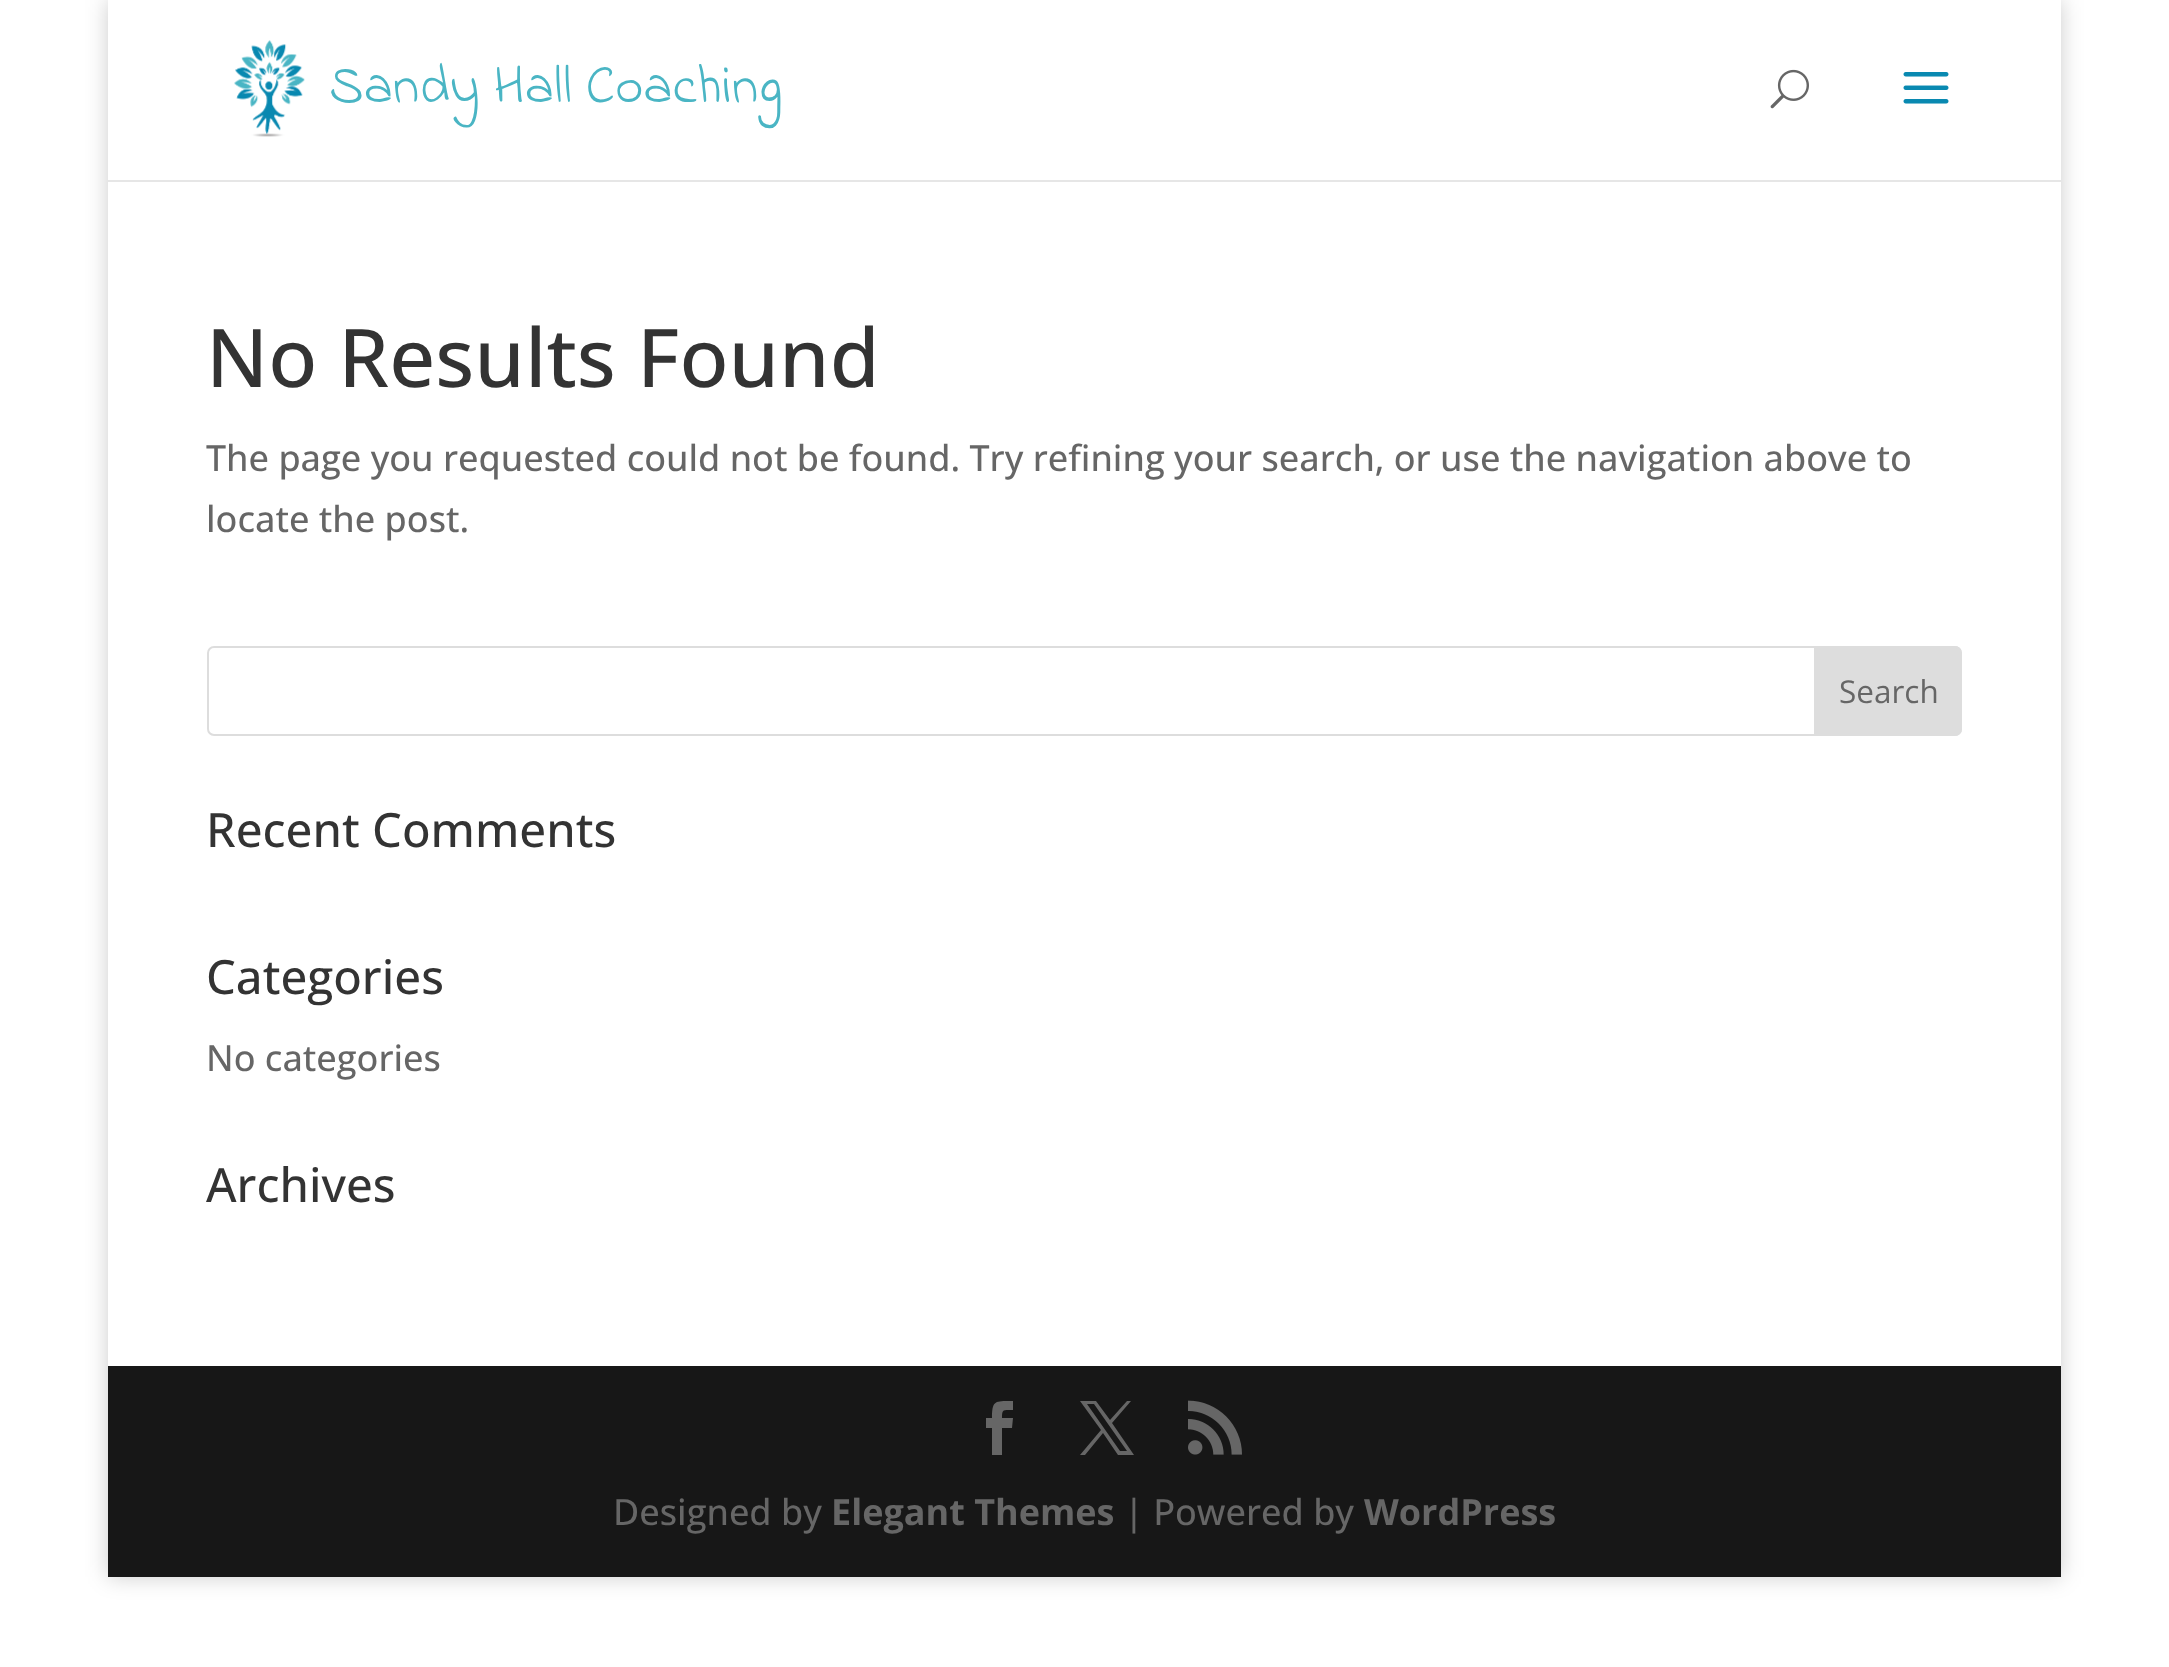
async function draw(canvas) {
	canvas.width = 2169;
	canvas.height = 1667;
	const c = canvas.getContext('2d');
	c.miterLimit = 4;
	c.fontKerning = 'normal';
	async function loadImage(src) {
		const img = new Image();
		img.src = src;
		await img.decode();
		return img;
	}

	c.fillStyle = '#fff';
	c.fillRect(0, 0, 2169, 1667);
	c.save();
	c.beginPath();
	c.moveTo(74, 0);
	c.lineTo(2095, 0);
	c.lineTo(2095, 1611);
	c.lineTo(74, 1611);
	c.closePath();
	c.moveTo(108, 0);
	c.lineTo(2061, 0);
	c.lineTo(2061, 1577);
	c.lineTo(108, 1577);
	c.closePath();
	c.clip('evenodd');
	c.fillStyle = '#00000033';
	c.filter = 'blur(11px)';
	c.beginPath();
	c.rect(108, 0, 1953, 1577);
	c.fill();
	c.filter = 'none';
	c.restore();
	c.fillStyle = '#e6e6e6';
	c.fillRect(108, 180, 1953, 2);
	c.drawImage(await loadImage('img1.png'), 234, 40, 71, 97);
	c.font = '54px Indie Flower';
	c.fillStyle = '#4ab5c4';
	c.fillText('Sandy Hall Coaching', 329, 102);
	c.drawImage(await loadImage('img2.png'), 1770, 69, 39, 40);
	c.drawImage(await loadImage('img3.png'), 1903, 72, 46, 32);
	c.font = '500 81px Open Sans';
	c.fillStyle = '#333';
	c.fillText('No Results Found', 206, 387);
	c.font = '500 36px Open Sans';
	c.fillStyle = '#666';
	c.fillText('The page you requested could not be found. Try refining your search, or use the navigation above to', 206, 471);
	c.fillText('locate the post.', 206, 532);
	c.beginPath();
	c.roundRect(208, 647, 1753, 88, 6);
	c.strokeStyle = '#ddd';
	c.lineWidth = 2;
	c.stroke();
	c.fillStyle = '#ddd';
	c.beginPath();
	c.roundRect(1815, 647, 146, 88, [0, 6, 6, 0]);
	c.fill();
	c.stroke();
	c.font = '31.5px Open Sans';
	c.fillStyle = '#666';
	c.fillText('Search', 1839, 703);
	c.font = '500 47.25px Open Sans';
	c.fillStyle = '#333';
	c.fillText('Recent Comments', 206, 847);
	c.fillText('Categories', 206, 994);
	c.font = '500 36px Open Sans';
	c.fillStyle = '#666';
	c.fillText('No categories', 206, 1071);
	c.font = '500 47.25px Open Sans';
	c.fillStyle = '#333';
	c.fillText('Archives', 206, 1202);
	c.fillStyle = '#171717';
	c.fillRect(108, 1366, 1953, 211);
	c.fillStyle = '#666';
	c.beginPath();
	c.moveTo(992, 1455);
	c.lineTo(1002, 1455);
	c.lineTo(1002, 1428);
	c.lineTo(1012, 1428);
	c.lineTo(1013, 1418);
	c.lineTo(1002, 1418);
	c.bezierCurveTo(1002, 1409, 1003, 1410, 1013, 1410);
	c.lineTo(1013, 1401);
	c.bezierCurveTo(995, 1401, 992, 1400, 992, 1418);
	c.lineTo(986, 1418);
	c.lineTo(986, 1428);
	c.lineTo(992, 1428);
	c.closePath();
	c.fill();
	c.beginPath();
	c.moveTo(1080, 1401);
	c.lineTo(1101, 1430);
	c.lineTo(1080, 1455);
	c.lineTo(1085, 1455);
	c.lineTo(1103, 1433);
	c.lineTo(1118, 1455);
	c.lineTo(1134, 1455);
	c.lineTo(1112, 1423);
	c.lineTo(1131, 1401);
	c.lineTo(1127, 1401);
	c.lineTo(1110, 1420);
	c.lineTo(1096, 1401);
	c.closePath();
	c.moveTo(1087, 1404);
	c.lineTo(1094, 1404);
	c.lineTo(1127, 1451);
	c.lineTo(1120, 1451);
	c.closePath();
	c.fill();
	c.drawImage(await loadImage('img4.png'), 1188, 1400, 54, 55);
	c.font = '500 36px Open Sans';
	c.fillText('Designed by', 613, 1525);
	c.font = 'bold 36px Open Sans';
	c.fillText('Elegant Themes', 831, 1525);
	c.font = '500 36px Open Sans';
	c.fillText('| Powered by', 1124, 1525);
	c.font = 'bold 36px Open Sans';
	c.fillText('WordPress', 1364, 1525);
}

draw(document.querySelector('canvas'));
